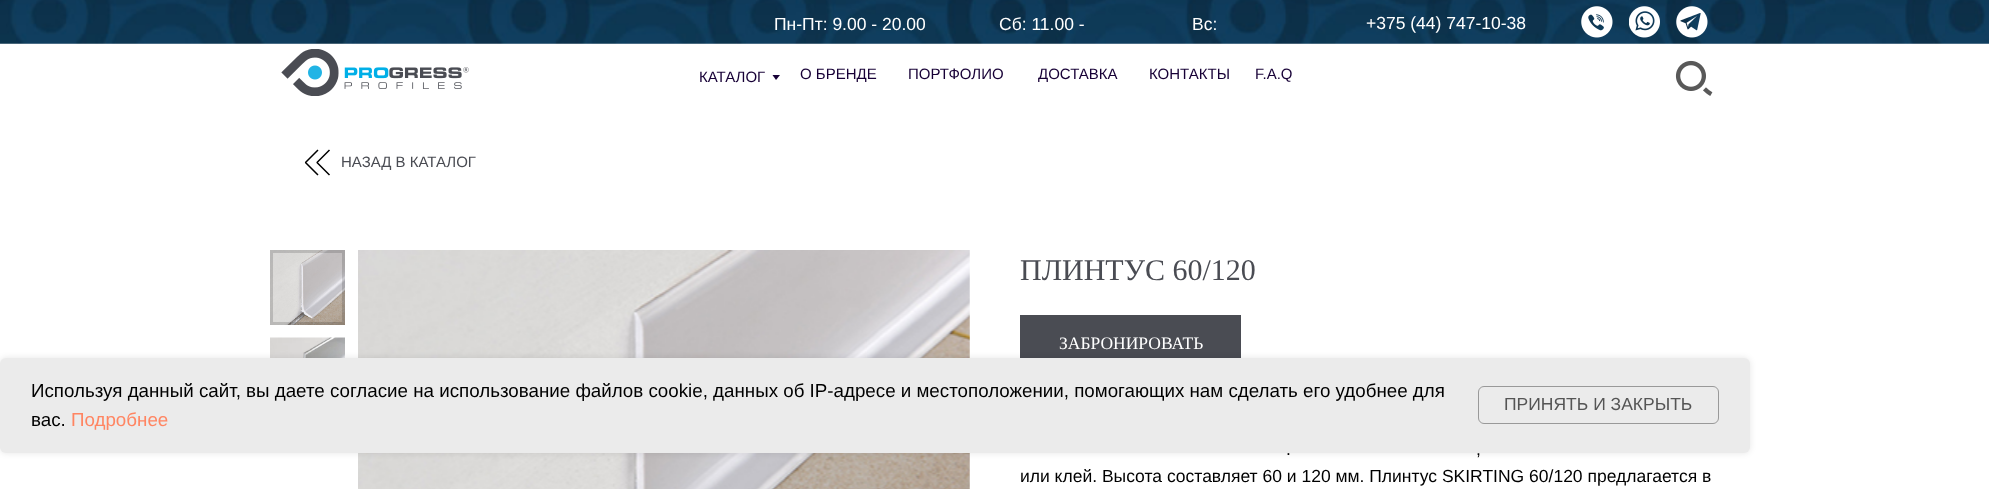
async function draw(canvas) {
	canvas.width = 1989;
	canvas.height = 489;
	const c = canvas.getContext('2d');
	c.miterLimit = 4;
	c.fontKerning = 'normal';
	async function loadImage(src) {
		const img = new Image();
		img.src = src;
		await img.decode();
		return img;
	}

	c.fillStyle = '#fff';
	c.fillRect(0, 0, 1989, 489);
	c.drawImage(await loadImage('img1.png'), 0, 0, 1989, 44);
	c.font = '17.5px Liberation Sans';
	for (const [text, x, y] of [
		['Пн-Пт: 9.00 - 20.00', 774, 30],
		['Сб: 11.00 -', 999, 30],
		['Вс:', 1192, 30],
		['+375 (44) 747-10-38', 1366, 29],
	]) {
		c.fillText(text, x, y);
	}
	c.drawImage(await loadImage('img2.png'), 1581, 6, 32, 32);
	c.drawImage(await loadImage('img3.png'), 1629, 6, 31, 32);
	c.drawImage(await loadImage('img4.png'), 1676, 6, 32, 32);
	c.drawImage(await loadImage('img5.png'), 281, 49, 188, 47);
	c.font = '15px Liberation Sans';
	c.fillStyle = '#170036';
	c.fillText('КАТАЛОГ', 699, 82);
	c.beginPath();
	c.moveTo(772.5, 75);
	c.lineTo(780, 75);
	c.lineTo(776, 80);
	c.closePath();
	c.fill();
	for (const [text, x, y] of [
		['О БРЕНДЕ', 800, 79],
		['ПОРТФОЛИО', 908, 79],
		['ДОСТАВКА', 1038, 79],
		['КОНТАКТЫ', 1149, 79],
		['F.A.Q', 1255, 79],
	]) {
		c.fillText(text, x, y);
	}
	c.drawImage(await loadImage('img6.png'), 1675, 60, 38, 36);
	c.beginPath();
	c.moveTo(318, 175);
	c.lineTo(305.5, 162.5);
	c.lineTo(318, 150);
	c.moveTo(329.5, 175);
	c.lineTo(317, 162.5);
	c.lineTo(329.5, 150);
	c.strokeStyle = '#000';
	c.lineWidth = 1.5;
	c.lineJoin = 'bevel';
	c.stroke();
	c.fillStyle = '#4a4c53';
	c.fillText('НАЗАД В КАТАЛОГ', 341, 167);
	c.drawImage(await loadImage('img7.png'), 270, 250, 75, 75);
	c.strokeStyle = '#00000026';
	c.lineWidth = 3;
	c.lineJoin = 'miter';
	c.strokeRect(271.5, 251.5, 72, 72);
	c.drawImage(await loadImage('img8.png'), 270, 337, 75, 21);
	c.drawImage(await loadImage('img9.png'), 358, 250, 612, 239);
	c.font = '30px Liberation Serif';
	c.fillText('ПЛИНТУС 60/120', 1020, 280);
	c.fillRect(1020, 315, 221, 43);
	c.font = '17.5px Liberation Serif';
	c.fillStyle = '#fff';
	c.fillText('ЗАБРОНИРОВАТЬ', 1059, 349);
	c.font = '17.5px Liberation Sans';
	c.fillStyle = '#000';
	for (const [text, x, y] of [
		['.', 1286, 455],
		[',', 1476, 455],
		['или клей. Высота составляет 60 и 120 мм. Плинтус SKIRTING 60/120 предлагается в', 1020, 482],
	]) {
		c.fillText(text, x, y);
	}
	c.fillStyle = '#0000001a';
	c.filter = 'blur(3px)';
	c.beginPath();
	c.roundRect(0, 358, 1750, 95, 6);
	c.fill();
	c.filter = 'none';
	c.fillStyle = '#ebebeb';
	c.beginPath();
	c.roundRect(0, 358, 1750, 95, 6);
	c.fill();
	c.font = '18.75px Liberation Sans';
	c.fillStyle = '#000';
	c.fillText('Используя данный сайт, вы даете согласие на использование файлов cookie, данных об IP-адресе и местоположении, помогающих нам сделать его удобнее для', 31, 397);
	c.fillText('вас.', 31, 426);
	c.fillStyle = '#ff8562';
	c.fillText('Подробнее', 71, 426);
	c.beginPath();
	c.roundRect(1478.5, 386.5, 240, 37, 5.5);
	c.strokeStyle = '#999';
	c.lineWidth = 1;
	c.stroke();
	c.font = '17.5px Liberation Sans';
	c.fillStyle = '#555';
	c.fillText('ПРИНЯТЬ И ЗАКРЫТЬ', 1504, 410);
}

draw(document.querySelector('canvas'));
